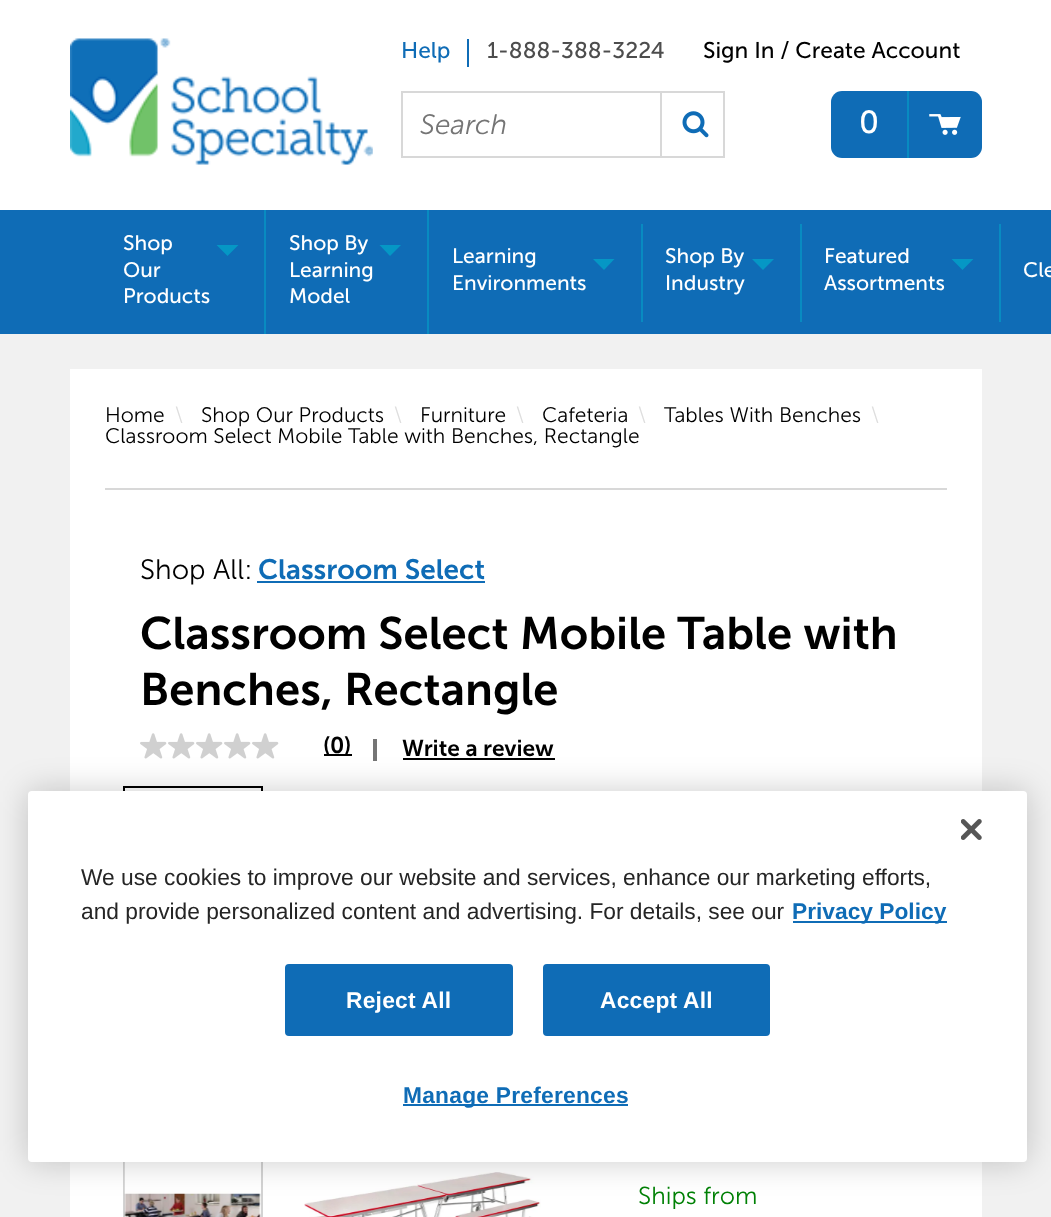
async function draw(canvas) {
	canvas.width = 1051;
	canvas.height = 1217;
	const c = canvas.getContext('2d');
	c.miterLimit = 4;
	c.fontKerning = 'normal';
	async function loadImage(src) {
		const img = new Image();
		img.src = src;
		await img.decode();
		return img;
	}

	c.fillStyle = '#f1f1f1';
	c.fillRect(0, 0, 1051, 1217);
	c.fillStyle = '#fff';
	c.fillRect(0, 0, 1051, 210);
	c.drawImage(await loadImage('img1.png'), 70, 38, 303, 127);
	c.fillStyle = '#0f6cb6';
	c.fillRect(467, 39, 2, 28);
	c.font = '22.75px "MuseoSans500"';
	c.fillText('Help', 401, 58);
	c.fillStyle = '#4d4d4d';
	c.fillText('1-888-388-3224', 487, 58);
	c.fillStyle = '#000';
	c.fillText('Sign In / Create Account', 703, 58);
	c.strokeStyle = '#d8d8d8';
	c.lineWidth = 2;
	c.strokeRect(402, 92, 322, 65);
	c.font = '28px "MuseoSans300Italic"';
	c.fillStyle = '#757575';
	c.fillText('Search', 420, 134);
	c.fillStyle = '#d8d8d8';
	c.fillRect(660, 93, 2, 63);
	c.drawImage(await loadImage('img2.png'), 682, 111, 27, 27);
	c.fillStyle = '#0f6cb6';
	c.beginPath();
	c.roundRect(831, 91, 151, 67, 11);
	c.fill();
	c.fillStyle = '#088bc1';
	c.fillRect(907, 91, 2, 67);
	c.font = '32px "MuseoSans500"';
	c.fillStyle = '#fff';
	c.fillText('0', 859, 133);
	c.drawImage(await loadImage('img3.png'), 929, 114, 32, 21);
	c.fillStyle = '#0f6cb6';
	c.fillRect(0, 210, 1051, 124);
	c.fillStyle = '#088bc1';
	c.fillRect(264, 210, 2, 124);
	c.font = '21px "MuseoSans500"';
	c.fillStyle = '#fff';
	c.fillText('Shop', 123, 250);
	c.fillStyle = '#0597c5';
	c.beginPath();
	c.moveTo(216.5, 245);
	c.lineTo(238.5, 245);
	c.lineTo(227.5, 256);
	c.closePath();
	c.fill();
	c.fillStyle = '#fff';
	c.fillText('Our', 123, 277);
	c.fillText('Products', 123, 303);
	c.fillStyle = '#088bc1';
	c.fillRect(427, 210, 2, 124);
	c.fillStyle = '#fff';
	c.fillText('Shop By', 289, 250);
	c.fillStyle = '#0597c5';
	c.beginPath();
	c.moveTo(379.5, 245);
	c.lineTo(401, 245);
	c.lineTo(390, 256);
	c.closePath();
	c.fill();
	c.fillStyle = '#fff';
	c.fillText('Learning', 289, 277);
	c.fillText('Model', 289, 303);
	c.fillStyle = '#088bc1';
	c.fillRect(641, 224, 2, 98);
	c.fillStyle = '#fff';
	c.fillText('Learning', 452, 263);
	c.fillStyle = '#0597c5';
	c.beginPath();
	c.moveTo(593, 259);
	c.lineTo(614.5, 259);
	c.lineTo(604, 270);
	c.closePath();
	c.fill();
	c.fillStyle = '#fff';
	c.fillText('Environments', 452, 290);
	c.fillStyle = '#088bc1';
	c.fillRect(800, 224, 2, 98);
	c.fillStyle = '#fff';
	c.fillText('Shop By', 665, 263);
	c.fillStyle = '#0597c5';
	c.beginPath();
	c.moveTo(752, 259);
	c.lineTo(774, 259);
	c.lineTo(763, 270);
	c.closePath();
	c.fill();
	c.fillStyle = '#fff';
	c.fillText('Industry', 665, 290);
	c.fillStyle = '#088bc1';
	c.fillRect(999, 224, 2, 98);
	c.fillStyle = '#fff';
	c.fillText('Featured', 824, 263);
	c.fillStyle = '#0597c5';
	c.beginPath();
	c.moveTo(951.5, 259);
	c.lineTo(973.5, 259);
	c.lineTo(962.5, 270);
	c.closePath();
	c.fill();
	c.fillStyle = '#fff';
	c.fillText('Assortments', 824, 290);
	c.fillText('Cle', 1023, 277);
	c.fillRect(70, 369, 912, 848);
	c.font = '21px "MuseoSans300"';
	c.fillStyle = '#000';
	c.fillText('Home', 105, 422);
	c.fillStyle = '#dedede';
	c.fillText('\\', 175, 422);
	c.fillStyle = '#000';
	c.fillText('Shop Our Products', 201, 422);
	c.fillStyle = '#dedede';
	c.fillText('\\', 394, 422);
	c.fillStyle = '#000';
	c.fillText('Furniture', 420, 422);
	c.fillStyle = '#dedede';
	c.fillText('\\', 516, 422);
	c.fillStyle = '#000';
	c.fillText('Cafeteria', 542, 422);
	c.fillStyle = '#dedede';
	c.fillText('\\', 638, 422);
	c.fillStyle = '#000';
	c.fillText('Tables With Benches', 664, 422);
	c.fillStyle = '#dedede';
	c.fillText('\\', 871, 422);
	c.fillStyle = '#000';
	c.fillText('Classroom Select Mobile Table with Benches, Rectangle', 105, 443);
	c.fillStyle = '#d8d8d8';
	c.fillRect(105, 488, 842, 2);
	c.font = '28px "MuseoSans300"';
	c.fillStyle = '#000';
	c.fillText('Shop All:', 140, 579);
	c.font = '28px "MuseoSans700"';
	c.fillStyle = '#0f6cb6';
	c.fillText('Classroom Select', 258, 579);
	c.fillRect(257, 581, 228, 2);
	c.font = '45.5px "MuseoSans700"';
	c.fillStyle = '#000';
	c.fillText('Classroom Select Mobile Table with', 140, 649);
	c.fillText('Benches, Rectangle', 140, 705);
	c.drawImage(await loadImage('img4.png'), 140, 733, 27, 26);
	c.drawImage(await loadImage('img4.png'), 168, 733, 27, 26);
	c.drawImage(await loadImage('img4.png'), 196, 733, 27, 26);
	c.drawImage(await loadImage('img4.png'), 224, 733, 27, 26);
	c.drawImage(await loadImage('img4.png'), 252, 733, 27, 26);
	c.fillRect(324, 754, 28, 2);
	c.font = '22.75px "MuseoSans700"';
	c.fillText('(0)', 323, 753);
	c.fillStyle = '#757575';
	c.fillRect(373, 739, 4, 22);
	c.fillStyle = '#000';
	c.fillText('Write a review', 402, 756);
	c.fillRect(403, 758, 152, 2);
	c.strokeStyle = '#000';
	c.strokeRect(124, 787, 138, 147);
	c.strokeStyle = '#d3d3d3';
	c.strokeRect(124, 1154, 138, 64);
	c.drawImage(await loadImage('img5.png'), 124, 1162, 137, 55);
	c.drawImage(await loadImage('img6.png'), 304, 1172, 237, 45);
	c.font = '24.5px "MuseoSans300"';
	c.fillStyle = '#008105';
	c.fillText('Ships from', 638, 1204);
	c.fillStyle = '#00000033';
	c.filter = 'blur(16px)';
	c.beginPath();
	c.roundRect(28, 791, 999, 371, 4);
	c.fill();
	c.filter = 'none';
	c.fillStyle = '#fff';
	c.beginPath();
	c.roundRect(28, 791, 999, 371, 4);
	c.fill();
	c.drawImage(await loadImage('img7.png'), 961, 819, 21, 21);
	c.font = '22.75px Liberation Sans';
	c.fillStyle = '#252525';
	c.fillText('We use cookies to improve our website and services, enhance our marketing efforts,', 81, 885);
	c.fillText('and provide personalized content and advertising. For details, see our', 81, 919);
	c.fillStyle = '#0f6cb6';
	c.fillRect(793, 921, 154, 2);
	c.font = 'bold 22.75px Liberation Sans';
	c.fillText('Privacy Policy', 792, 919);
	c.beginPath();
	c.roundRect(286, 965, 226, 70, 3);
	c.fill();
	c.strokeStyle = '#0f6cb6';
	c.stroke();
	c.letterSpacing = '0.25px';
	c.fillStyle = '#fff';
	c.fillText('Reject All', 346, 1008);
	c.fillStyle = '#0f6cb6';
	c.beginPath();
	c.roundRect(544, 965, 225, 70, 3);
	c.fill();
	c.stroke();
	c.fillStyle = '#fff';
	c.fillText('Accept All', 600, 1008);
	c.fillStyle = '#0f6cb6';
	c.fillRect(403, 1104, 225, 2);
	c.fillText('Manage Preferences', 403, 1103);
}

draw(document.querySelector('canvas'));
